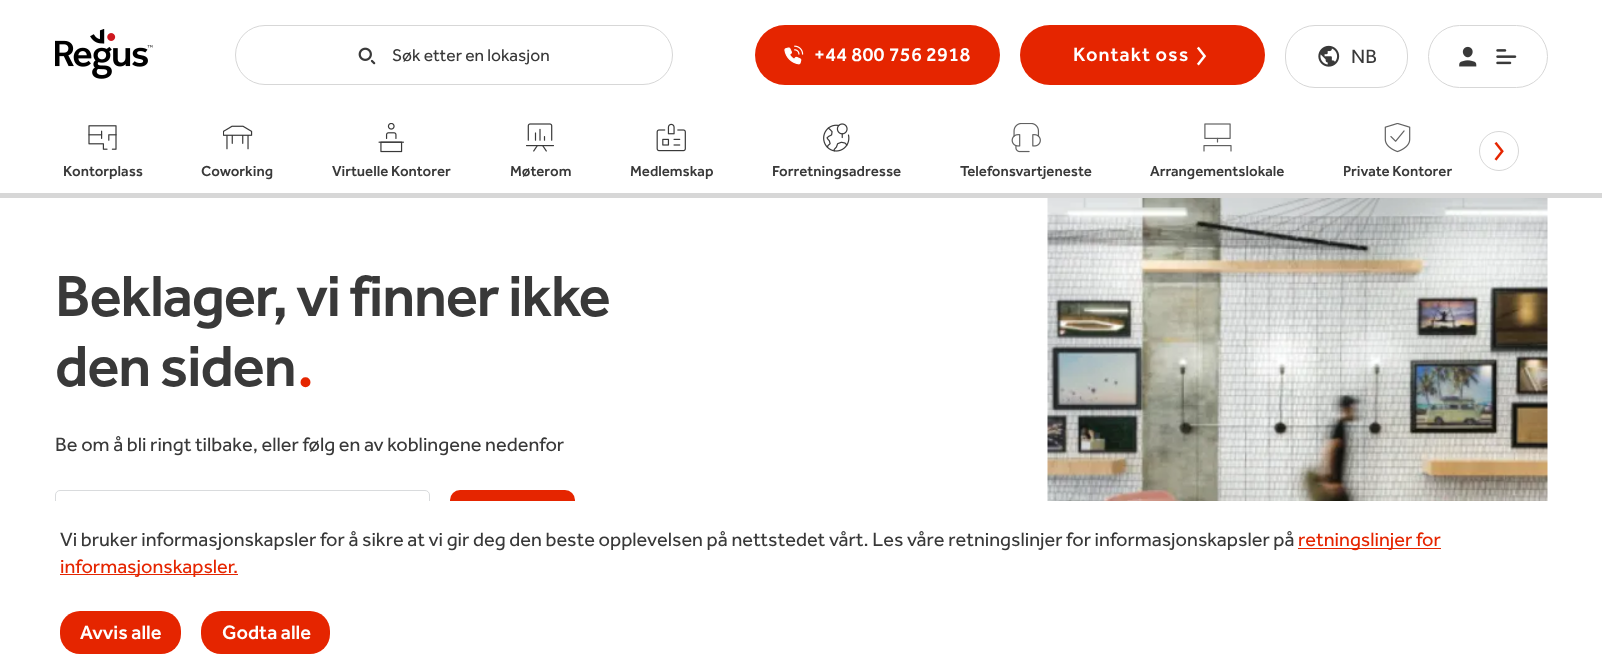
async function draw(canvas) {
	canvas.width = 1602;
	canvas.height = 666;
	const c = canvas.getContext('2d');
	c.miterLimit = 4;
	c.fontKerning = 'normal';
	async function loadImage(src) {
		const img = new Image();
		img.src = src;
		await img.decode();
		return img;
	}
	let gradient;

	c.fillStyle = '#fff';
	c.fillRect(0, 0, 1602, 666);
	c.drawImage(await loadImage('img1.png'), 55, 29, 98, 50);
	c.beginPath();
	c.roundRect(235.5, 25.5, 437, 59, 29.5);
	c.strokeStyle = '#d7d7d7';
	c.stroke();
	c.drawImage(await loadImage('img2.png'), 358, 47, 18, 18);
	c.font = '17.5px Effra';
	c.fillStyle = '#393939';
	c.fillText('Søk etter en lokasjon', 392, 61);
	c.fillStyle = '#e52500';
	c.beginPath();
	c.roundRect(755, 25, 245, 60, 30);
	c.fill();
	c.drawImage(await loadImage('img3.png'), 784, 45, 20, 20);
	c.letterSpacing = '0.25px';
	c.font = '500 20px Effra';
	c.fillStyle = '#fff';
	c.fillText('+44 800 756 2918', 814, 61);
	c.fillStyle = '#e52500';
	c.beginPath();
	c.roundRect(1020, 25, 245, 60, 30);
	c.fill();
	c.letterSpacing = '1px';
	c.fillStyle = '#fff';
	c.fillText('Kontakt oss', 1073, 61);
	c.drawImage(await loadImage('img4.png'), 1196, 46, 11, 20);
	c.beginPath();
	c.roundRect(1285.5, 25.5, 122, 62, 29.5);
	c.stroke();
	c.drawImage(await loadImage('img5.png'), 1318, 45, 22, 22);
	c.letterSpacing = '0px';
	c.font = '20px Effra';
	c.fillStyle = '#393939';
	c.fillText('NB', 1351, 63);
	c.beginPath();
	c.roundRect(1428.5, 25.5, 119, 62, 31);
	c.stroke();
	c.drawImage(await loadImage('img6.png'), 1459, 46, 18, 21);
	c.drawImage(await loadImage('img7.png'), 1496, 49, 21, 16);
	c.font = '500 15px Effra';
	c.fillText('Private Kontorer', 1343, 176);
	gradient = c.createLinearGradient(1449, 151, 1549, 151);
	gradient.addColorStop(0.01, '#ffffff00');
	gradient.addColorStop(0.5, '#fff');
	gradient.addColorStop(1, '#fff');
	c.fillStyle = gradient;
	c.fillRect(1451, 169, 2, 2);
	c.beginPath();
	c.arc(1499, 151, 19.5, 0, 2 * Math.PI);
	c.stroke();
	c.drawImage(await loadImage('img8.png'), 1494, 142, 10, 19);
	c.drawImage(await loadImage('img9.png'), 88, 125, 29, 25);
	c.fillStyle = '#393939';
	c.fillText('Kontorplass', 63, 176);
	c.drawImage(await loadImage('img10.png'), 223, 125, 30, 25);
	c.fillText('Coworking', 201, 176);
	c.drawImage(await loadImage('img11.png'), 378, 123, 26, 30);
	c.fillText('Virtuelle Kontorer', 332, 176);
	c.drawImage(await loadImage('img12.png'), 526, 123, 28, 29);
	c.fillText('Møterom', 510, 176);
	c.drawImage(await loadImage('img13.png'), 656, 123, 30, 29);
	c.fillText('Medlemskap', 630, 176);
	c.drawImage(await loadImage('img14.png'), 823, 123, 27, 29);
	c.fillText('Forretningsadresse', 772, 176);
	c.drawImage(await loadImage('img15.png'), 1011, 123, 30, 30);
	c.fillText('Telefonsvartjeneste', 960, 176);
	c.drawImage(await loadImage('img16.png'), 1203, 123, 29, 29);
	c.fillText('Arrangementslokale', 1150, 176);
	c.drawImage(await loadImage('img17.png'), 1384, 123, 27, 30);
	c.fillStyle = '#d7d7d7';
	c.fillRect(0, 193, 1602, 5);
	c.letterSpacing = '-1.25px';
	c.font = '500 60px Effra';
	c.fillStyle = '#393939';
	c.fillText('Beklager, vi finner ikke', 55, 316);
	c.fillText('den siden', 55, 386);
	c.font = '84px Liberation Serif';
	c.fillStyle = '#e52500';
	c.fillText('.', 295, 386);
	c.letterSpacing = '0px';
	c.font = '20px Effra';
	c.fillStyle = '#393939';
	c.fillText('Be om å bli ringt tilbake, eller følg en av koblingene nedenfor', 55, 451);
	c.beginPath();
	c.roundRect(55.5, 490.5, 374, 69, 4.5);
	c.strokeStyle = '#d9dbdd';
	c.stroke();
	c.fillStyle = '#e52500';
	c.beginPath();
	c.roundRect(450, 490, 125, 70, 10);
	c.fill();
	c.drawImage(await loadImage('img18.png'), 1047, 198, 501, 303);
	c.fillStyle = '#fff';
	c.fillRect(55, 501, 520, 59);
	c.fillStyle = '#393939';
	c.fillText('Vi bruker informasjonskapsler for å sikre at vi gir deg den beste opplevelsen på nettstedet vårt. Les våre retningslinjer for informasjonskapsler på', 60, 546);
	c.fillStyle = '#e52500';
	c.fillRect(1298, 548, 143, 1);
	c.fillText('retningslinjer for', 1298, 546);
	c.fillRect(60, 574, 178, 1);
	c.fillText('informasjonskapsler.', 60, 573);
	c.beginPath();
	c.roundRect(60, 611, 121, 43, 20);
	c.fill();
	c.font = '500 20px Effra';
	c.fillStyle = '#fff';
	c.fillText('Avvis alle', 80, 639);
	c.fillStyle = '#e52500';
	c.beginPath();
	c.roundRect(201, 611, 129, 43, 20);
	c.fill();
	c.fillStyle = '#fff';
	c.fillText('Godta alle', 222, 639);
}

draw(document.querySelector('canvas'));
